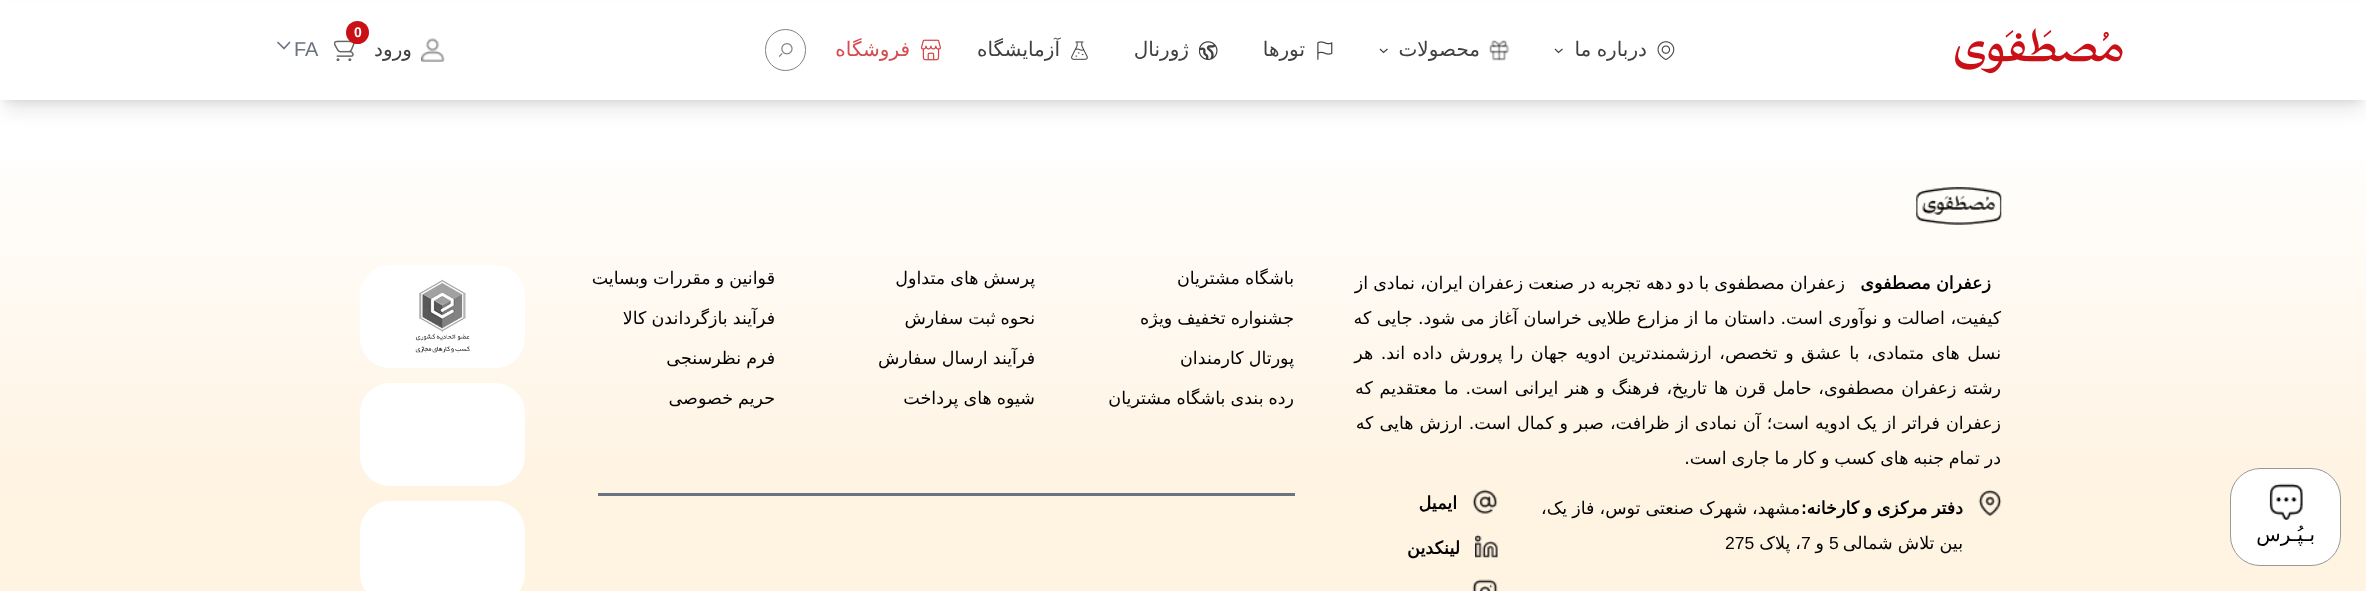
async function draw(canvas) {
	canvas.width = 2366;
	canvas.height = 591;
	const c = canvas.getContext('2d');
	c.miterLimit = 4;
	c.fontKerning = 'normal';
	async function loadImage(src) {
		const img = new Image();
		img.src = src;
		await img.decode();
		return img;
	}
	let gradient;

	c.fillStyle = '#fff';
	c.fillRect(0, 0, 2366, 591);
	c.fillStyle = '#0000001a';
	c.filter = 'blur(4px)';
	c.beginPath();
	c.rect(5, 10, 2356, 90);
	c.fill();
	c.filter = 'none';
	c.filter = 'blur(9.5px)';
	c.beginPath();
	c.rect(4, 16, 2359, 93);
	c.fill();
	c.filter = 'none';
	c.fillStyle = '#fff';
	c.fillRect(0, 2, 2366, 98);
	c.drawImage(await loadImage('img1.png'), 1955, 28, 168, 46);
	c.drawImage(await loadImage('img2.png'), 1657, 41, 18, 19);
	c.wordSpacing = '-1px';
	c.direction = 'rtl';
	c.font = '20px DejaVu Sans';
	c.fillStyle = '#404040';
	c.fillText('درباره ما', 1647, 56);
	c.beginPath();
	c.moveTo(1562.5, 49);
	c.lineTo(1558.5, 52.5);
	c.lineTo(1555, 49);
	c.strokeStyle = '#404040';
	c.lineWidth = 1.2;
	c.stroke();
	c.drawImage(await loadImage('img3.png'), 1489, 40, 21, 21);
	c.wordSpacing = '0px';
	c.fillText('محصولات', 1480, 56);
	c.beginPath();
	c.moveTo(1387.5, 49);
	c.lineTo(1383.5, 52.5);
	c.lineTo(1380, 49);
	c.stroke();
	c.drawImage(await loadImage('img4.png'), 1317, 41, 16, 19);
	c.fillText('تورها', 1305, 56);
	c.drawImage(await loadImage('img5.png'), 1199, 41, 19, 19);
	c.fillText('ژورنال', 1189, 56);
	c.drawImage(await loadImage('img6.png'), 1071, 41, 17, 19);
	c.fillText('آزمایشگاه', 1060, 56);
	c.drawImage(await loadImage('img7.png'), 920, 39, 21, 22);
	c.fillStyle = '#d64b50';
	c.fillText('فروشگاه', 910, 56);
	c.beginPath();
	c.roundRect(765.5, 29.5, 40, 41, 20);
	c.strokeStyle = '#808080';
	c.lineWidth = 1;
	c.stroke();
	c.drawImage(await loadImage('img8.png'), 779, 43, 14, 14);
	c.drawImage(await loadImage('img9.png'), 334, 40, 21, 21);
	c.fillStyle = '#c91016';
	c.beginPath();
	c.arc(357.5, 32.5, 11.5, 0, 2 * Math.PI);
	c.fill();
	c.direction = 'ltr';
	c.font = 'bold 14px Liberation Sans';
	c.fillStyle = '#fff';
	c.fillText('0', 354, 37);
	c.drawImage(await loadImage('img10.png'), 421, 38, 24, 24);
	c.direction = 'rtl';
	c.font = '20px DejaVu Sans';
	c.fillStyle = '#404040';
	c.fillText('ورود', 412, 56);
	c.direction = 'ltr';
	c.font = '20px Liberation Sans';
	c.fillStyle = '#6b7280';
	c.fillText('FA', 294, 56);
	c.beginPath();
	c.moveTo(289.5, 42.5);
	c.lineTo(284, 48.5);
	c.lineTo(278, 42.5);
	c.strokeStyle = '#6b7280';
	c.lineWidth = 1.7;
	c.lineCap = 'round';
	c.lineJoin = 'round';
	c.stroke();
	gradient = c.createLinearGradient(1183, 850, 1183, 128);
	gradient.addColorStop(0, '#fff3e2');
	gradient.addColorStop(0.5, '#fff3e2');
	gradient.addColorStop(1, '#fff');
	c.fillStyle = gradient;
	c.fillRect(0, 159, 2366, 432);
	c.fillStyle = '#fff';
	c.beginPath();
	c.roundRect(2230.5, 468.5, 110, 97, 29.5);
	c.fill();
	c.strokeStyle = '#989898';
	c.lineWidth = 1;
	c.lineJoin = 'miter';
	c.stroke();
	c.drawImage(await loadImage('img11.png'), 2269, 483, 34, 37);
	c.direction = 'rtl';
	c.font = '20px DejaVu Sans';
	c.fillStyle = '#000';
	c.fillText('بـپُـرس', 2315, 541);
	c.drawImage(await loadImage('img12.png'), 1916, 187, 86, 38);
	c.wordSpacing = '-0.4px';
	c.font = 'bold 17.5px DejaVu Sans';
	c.fillText('زعفران مصطفوی', 1991, 289);
	c.font = '17.5px DejaVu Sans';
	c.fillText('زعفران مصطفوی با دو دهه تجربه در صنعت زعفران ایران، نمادی از', 1845, 289);
	c.wordSpacing = '0px';
	c.fillText('کیفیت، اصالت و نوآوری است. داستان ما از مزارع طلایی خراسان آغاز می شود. جایی که', 2001, 324);
	c.wordSpacing = '1.9px';
	c.fillText('نسل های متمادی، با عشق و تخصص، ارزشمندترین ادویه جهان را پرورش داده اند. هر', 2001, 359);
	c.wordSpacing = '1.25px';
	c.fillText('رشته زعفران مصطفوی، حامل قرن ها تاریخ، فرهنگ و هنر ایرانی است. ما معتقدیم که', 2001, 394);
	c.wordSpacing = '0.5px';
	c.fillText('زعفران فراتر از یک ادویه است؛ آن نمادی از ظرافت، صبر و کمال است. ارزش هایی که', 2001, 429);
	c.wordSpacing = '-0.75px';
	c.fillText('در تمام جنبه های کسب و کار ما جاری است.', 2001, 464);
	c.drawImage(await loadImage('img13.png'), 1978, 489, 24, 27);
	c.wordSpacing = '-1px';
	c.font = 'bold 17.5px DejaVu Sans';
	c.fillText('دفتر مرکزی و کارخانه:', 1963, 514);
	c.wordSpacing = '-0.5px';
	c.font = '17.5px DejaVu Sans';
	c.fillText('مشهد، شهرک صنعتی توس، فاز یک،', 1800, 514);
	c.fillText('بین تلاش شمالی', 1963, 549);
	c.wordSpacing = '0px';
	c.direction = 'ltr';
	c.font = '17.5px Liberation Sans';
	c.fillText('5', 1829, 549);
	c.direction = 'rtl';
	c.font = '17.5px DejaVu Sans';
	c.fillText('و', 1824, 549);
	c.direction = 'ltr';
	c.font = '17.5px Liberation Sans';
	c.fillText('7', 1801, 549);
	c.wordSpacing = '-0.5px';
	c.direction = 'rtl';
	c.font = '17.5px DejaVu Sans';
	c.fillText('، پلاک', 1801, 549);
	c.wordSpacing = '0px';
	c.direction = 'ltr';
	c.font = '17.5px Liberation Sans';
	c.fillText('275', 1725, 549);
	c.drawImage(await loadImage('img14.png'), 1472, 489, 26, 25);
	c.direction = 'rtl';
	c.font = 'bold 17.5px DejaVu Sans';
	c.fillText('ایمیل', 1457, 509);
	c.drawImage(await loadImage('img15.png'), 1475, 534, 23, 24);
	c.fillText('لینکدین', 1460, 554);
	c.drawImage(await loadImage('img16.png'), 1472, 579, 26, 12);
	c.wordSpacing = '-0.5px';
	c.font = '17.5px DejaVu Sans';
	for (const [text, x, y] of [
		['باشگاه مشتریان', 1294, 284],
		['جشنواره تخفیف ویژه', 1294, 324],
		['پورتال کارمندان', 1294, 364],
		['رده بندی باشگاه مشتریان', 1294, 404],
		['پرسش های متداول', 1035, 284],
		['نحوه ثبت سفارش', 1035, 324],
		['فرآیند ارسال سفارش', 1035, 364],
		['شیوه های پرداخت', 1035, 404],
		['قوانین و مقررات وبسایت', 775, 284],
		['فرآیند بازگرداندن کالا', 775, 324],
		['فرم نظرسنجی', 775, 364],
		['حریم خصوصی', 775, 404],
	]) {
		c.fillText(text, x, y);
	}
	c.fillStyle = '#6b7280';
	c.fillRect(598, 493, 697, 3);
	c.fillStyle = '#fff';
	c.beginPath();
	c.roundRect(360, 265, 165, 103, 30);
	c.fill();
	c.drawImage(await loadImage('img17.png'), 415, 279, 55, 74);
	c.beginPath();
	c.roundRect(360, 383, 165, 103, 30);
	c.fill();
	c.beginPath();
	c.roundRect(360, 501, 165, 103, 30);
	c.fill();
}

draw(document.querySelector('canvas'));
